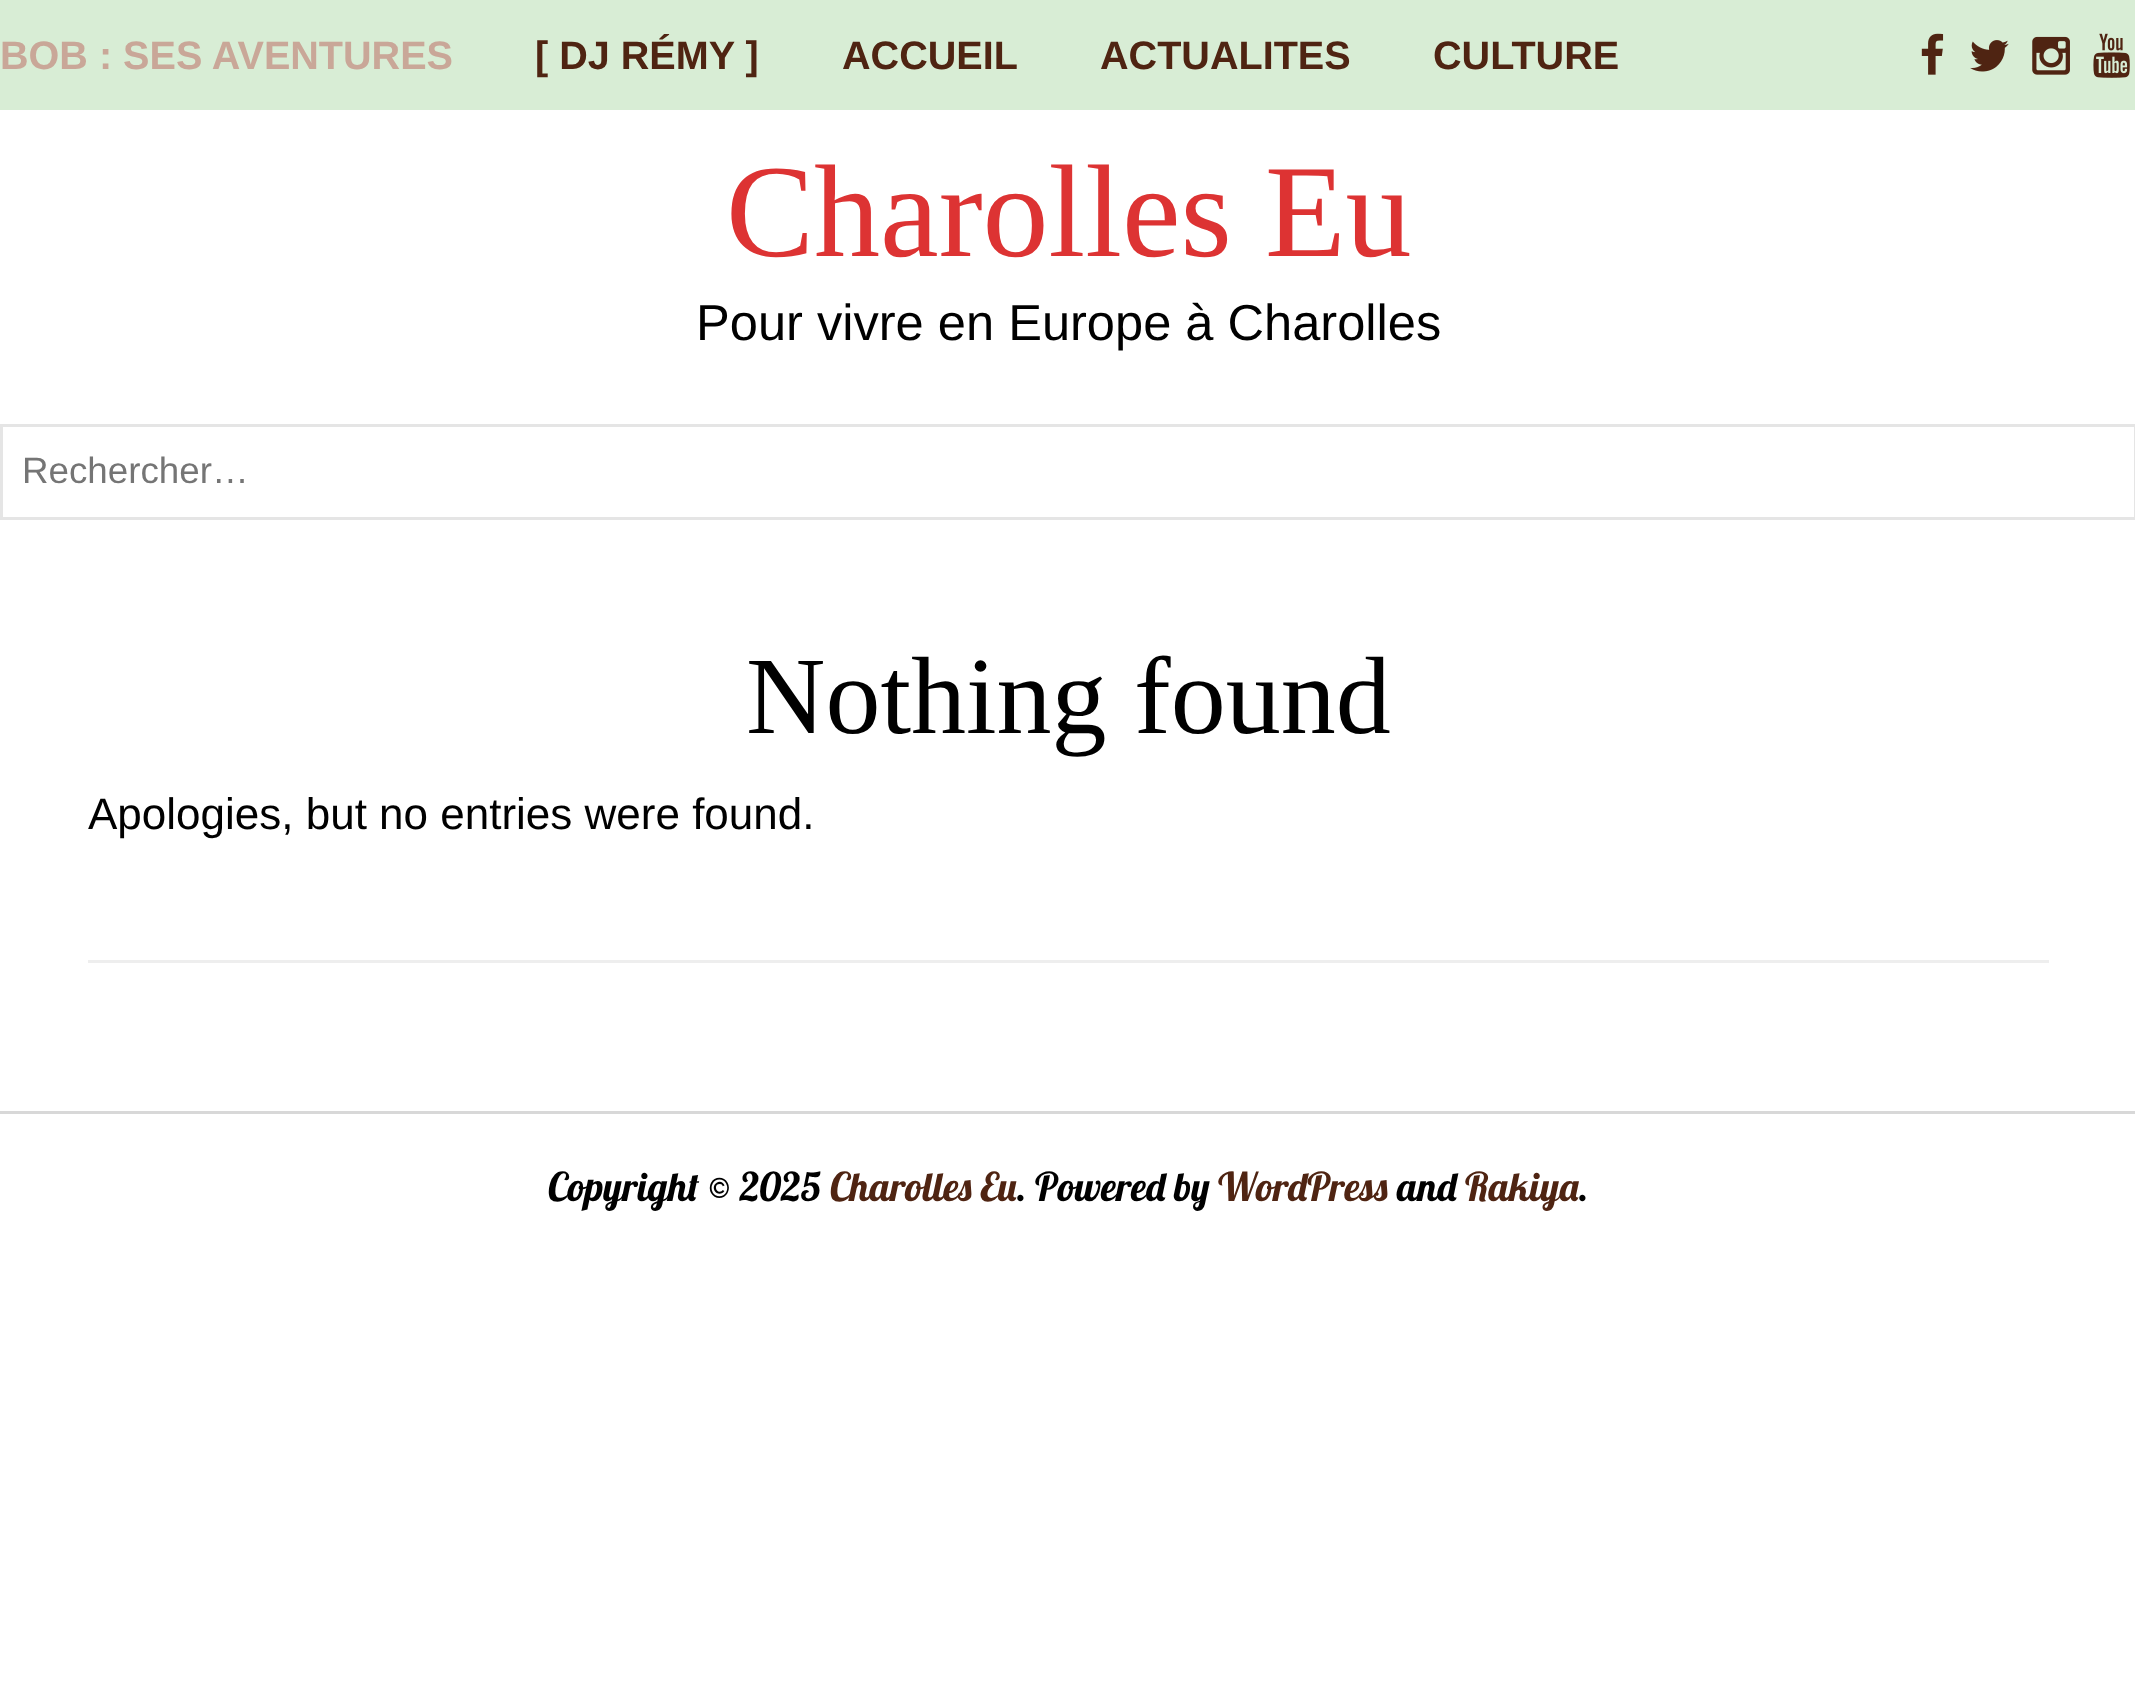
async function draw(canvas) {
	canvas.width = 2135;
	canvas.height = 1684;
	const c = canvas.getContext('2d');
	c.miterLimit = 4;
	c.fontKerning = 'normal';
	async function loadImage(src) {
		const img = new Image();
		img.src = src;
		await img.decode();
		return img;
	}

	c.fillStyle = '#fff';
	c.fillRect(0, 0, 2135, 1684);
	c.fillStyle = '#d8edd5';
	c.fillRect(0, 0, 2135, 110);
	c.font = 'bold 39.6px Liberation Sans';
	c.fillStyle = '#c9a798';
	c.fillText('BOB : SES AVENTURES', 0, 69);
	c.fillStyle = '#4f2412';
	for (const [text, x, y] of [
		['[ DJ RÉMY ]', 535, 69],
		['ACCUEIL', 842, 69],
		['ACTUALITES', 1100, 69],
		['CULTURE', 1433, 69],
	]) {
		c.fillText(text, x, y);
	}
	c.drawImage(await loadImage('img1.png'), 1921, 33, 23, 42);
	c.drawImage(await loadImage('img2.png'), 1970, 40, 39, 32);
	c.drawImage(await loadImage('img3.png'), 2032, 36, 38, 39);
	c.drawImage(await loadImage('img4.png'), 2093, 33, 37, 45);
	c.font = '132px Liberation Serif';
	c.fillStyle = '#d33';
	c.fillText('Charolles Eu', 726, 256);
	c.font = '50.6px Liberation Sans';
	c.fillStyle = '#000';
	c.fillText('Pour vivre en Europe à Charolles', 696, 340);
	c.strokeStyle = '#e5e5e5';
	c.lineWidth = 3;
	c.strokeRect(1.5, 425.5, 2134, 93);
	c.font = '36.75px Liberation Sans';
	c.fillStyle = '#757575';
	c.fillText('Rechercher…', 22, 483);
	c.fillStyle = '#eee';
	c.fillRect(88, 960, 1961, 3);
	c.font = '110px Liberation Serif';
	c.fillStyle = '#000';
	c.fillText('Nothing found', 746, 733);
	c.font = '44px Liberation Sans';
	c.fillText('Apologies, but no entries were found.', 88, 829);
	c.fillStyle = '#d8d8d8';
	c.fillRect(0, 1111, 2135, 3);
	c.font = '39.6px Lobster';
	c.fillStyle = '#000';
	c.fillText('Copyright © 2025', 548, 1201);
	c.fillStyle = '#4f2412';
	c.fillText('Charolles Eu', 830, 1201);
	c.fillStyle = '#000';
	c.fillText('. Powered by', 1016, 1201);
	c.fillStyle = '#4f2412';
	c.fillText('WordPress', 1218, 1201);
	c.fillStyle = '#000';
	c.fillText('and', 1397, 1201);
	c.fillStyle = '#4f2412';
	c.fillText('Rakiya', 1465, 1201);
	c.fillStyle = '#000';
	c.fillText('.', 1578, 1201);
}

draw(document.querySelector('canvas'));
